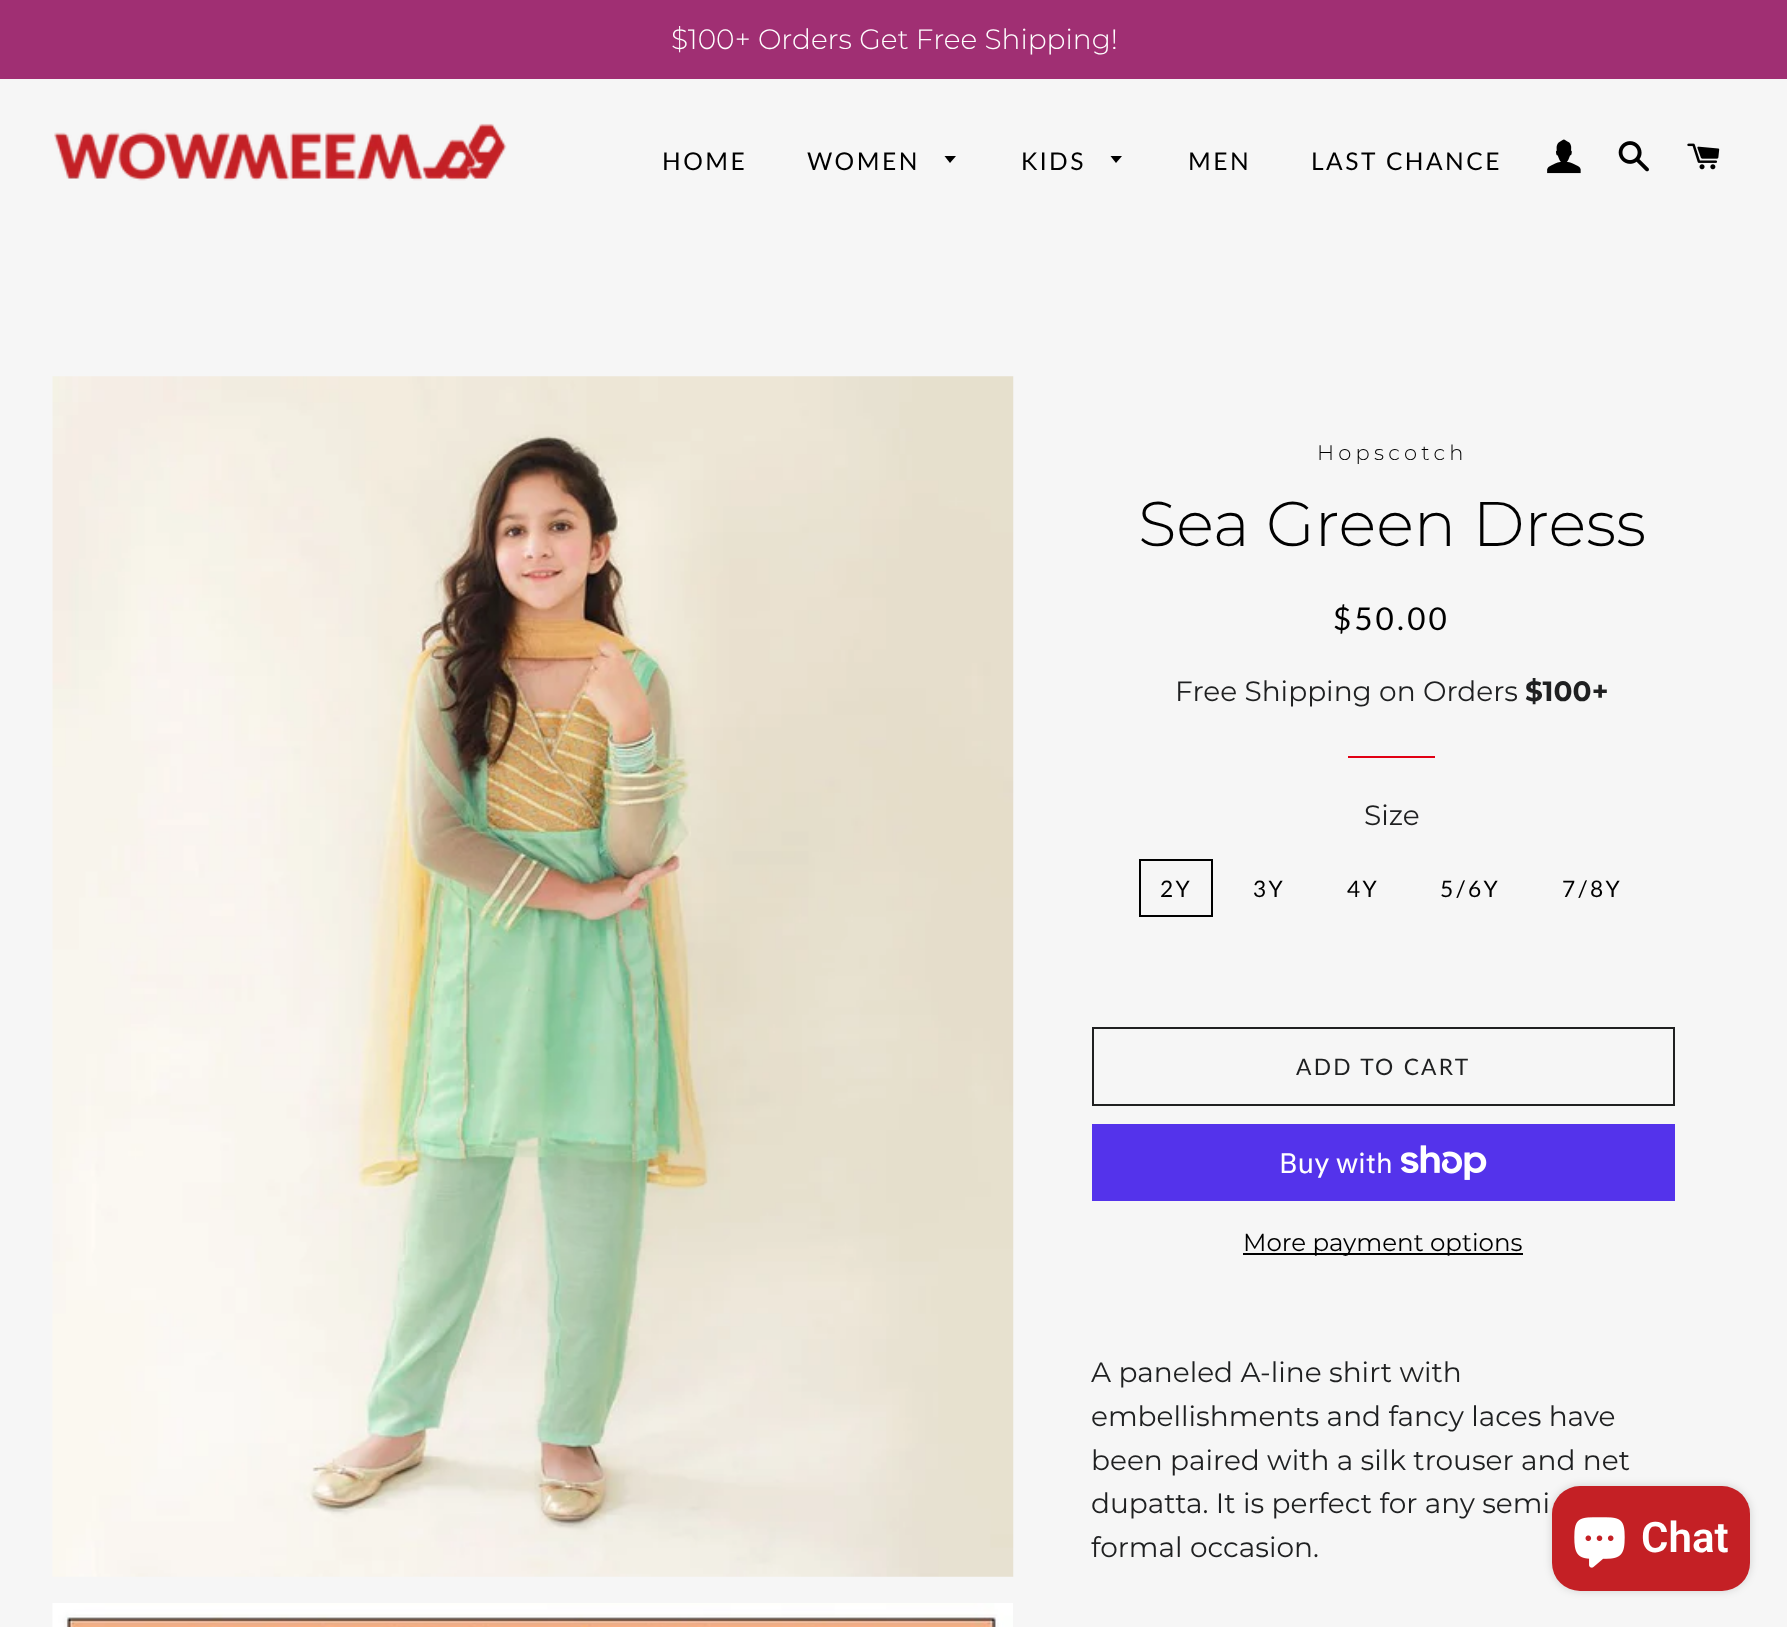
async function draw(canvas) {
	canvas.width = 1787;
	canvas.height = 1627;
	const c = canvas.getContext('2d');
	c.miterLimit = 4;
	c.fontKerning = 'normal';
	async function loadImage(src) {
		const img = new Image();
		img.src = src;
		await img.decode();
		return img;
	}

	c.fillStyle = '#f6f6f6';
	c.fillRect(0, 0, 1787, 1627);
	c.fillStyle = '#a02f73';
	c.fillRect(0, 0, 1787, 79);
	c.font = '300 28px Montserrat';
	c.fillStyle = '#fff';
	c.fillText('$100+ Orders Get Free Shipping!', 671, 49);
	c.drawImage(await loadImage('img1.png'), 54, 123, 453, 58);
	c.letterSpacing = '2.5px';
	c.font = '24.5px Lato';
	c.fillStyle = '#000';
	c.fillText('HOME', 662, 170);
	c.fillText('WOMEN', 807, 170);
	c.beginPath();
	c.moveTo(944.5, 156);
	c.lineTo(950, 163);
	c.lineTo(956, 156);
	c.closePath();
	c.fill();
	c.fillText('KIDS', 1021, 170);
	c.beginPath();
	c.moveTo(1110.5, 156);
	c.lineTo(1116, 163);
	c.lineTo(1122, 156);
	c.closePath();
	c.fill();
	c.fillText('MEN', 1188, 170);
	c.fillText('LAST CHANCE', 1311, 170);
	c.drawImage(await loadImage('img2.png'), 1547, 139, 34, 35);
	c.drawImage(await loadImage('img3.png'), 1618, 141, 31, 31);
	c.drawImage(await loadImage('img4.png'), 1687, 143, 33, 27);
	c.drawImage(await loadImage('img5.png'), 52, 376, 962, 1201);
	c.drawImage(await loadImage('img6.png'), 52, 1603, 961, 24);
	c.letterSpacing = '4.25px';
	c.font = '300 21px Montserrat';
	c.fillText('Hopscotch', 1317, 460);
	c.letterSpacing = '0px';
	c.font = '300 63px Montserrat';
	c.fillText('Sea Green Dress', 1138, 546);
	c.letterSpacing = '3px';
	c.font = '31.5px Lato';
	c.fillText('$50.00', 1333, 630);
	c.letterSpacing = '0px';
	c.font = '28px Montserrat';
	c.fillStyle = '#1f2021';
	c.fillText('Free Shipping on Orders', 1175, 701);
	c.font = 'bold 28px Montserrat';
	c.fillText('$100+', 1525, 701);
	c.fillStyle = '#e10014';
	c.fillRect(1348, 756, 87, 2);
	c.font = '28px Montserrat';
	c.fillStyle = '#1f2021';
	c.fillText('Size', 1364, 825);
	c.strokeStyle = '#000';
	c.lineWidth = 2;
	c.strokeRect(1140, 860, 72, 56);
	c.letterSpacing = '2.25px';
	c.font = '22.75px Lato';
	c.fillStyle = '#000';
	for (const [text, x, y] of [
		['2Y', 1160, 897],
		['3Y', 1253, 897],
		['4Y', 1347, 897],
		['5/6Y', 1440, 897],
		['7/8Y', 1562, 897],
	]) {
		c.fillText(text, x, y);
	}
	c.strokeStyle = '#1f2021';
	c.strokeRect(1093, 1028, 581, 77);
	c.fillStyle = '#1f2021';
	c.fillText('ADD TO CART', 1296, 1075);
	c.fillStyle = '#5433eb';
	c.fillRect(1092, 1124, 583, 77);
	c.letterSpacing = '0px';
	c.font = '28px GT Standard';
	c.fillStyle = '#fff';
	c.fillText('Buy with', 1279, 1173);
	c.drawImage(await loadImage('img7.png'), 1401, 1145, 86, 35);
	c.fillStyle = '#000';
	c.fillRect(1243, 1253, 280, 2);
	c.font = '24.5px Montserrat';
	c.fillText('More payment options', 1243, 1251);
	c.font = '28px Montserrat';
	c.fillStyle = '#1f2021';
	for (const [text, x, y] of [
		['A paneled A-line shirt with', 1091, 1382],
		['embellishments and fancy laces have', 1091, 1426],
		['been paired with a silk trouser and net', 1091, 1470],
		['dupatta. It is perfect for any semi', 1091, 1513],
		['formal occasion.', 1091, 1557],
	]) {
		c.fillText(text, x, y);
	}
	c.fillStyle = '#00000026';
	c.filter = 'blur(4.5px)';
	c.beginPath();
	c.roundRect(1552, 1486, 198, 105, 28);
	c.fill();
	c.filter = 'none';
	c.fillStyle = '#c42025';
	c.beginPath();
	c.roundRect(1552, 1486, 198, 105, 28);
	c.fill();
	c.drawImage(await loadImage('img8.png'), 1574, 1517, 51, 51);
	c.font = '600 42px Roboto';
	c.fillStyle = '#fff';
	c.fillText('Chat', 1641, 1552);
}

draw(document.querySelector('canvas'));
